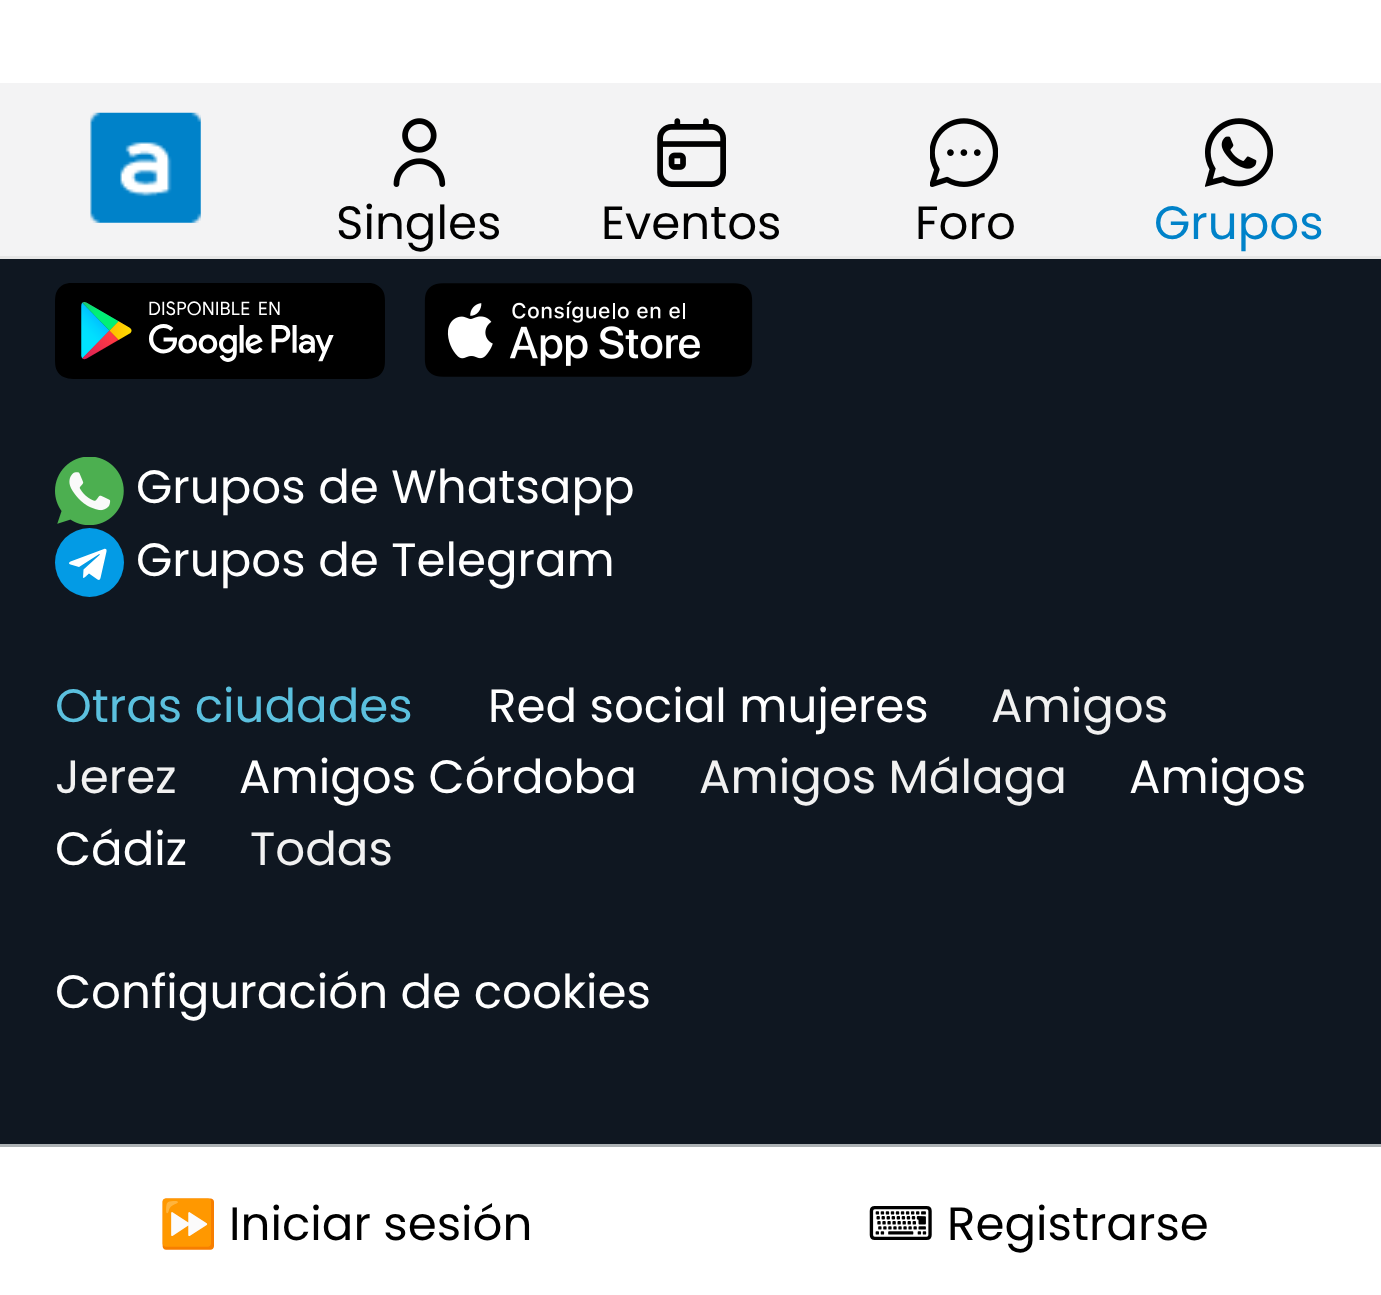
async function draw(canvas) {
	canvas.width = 1381;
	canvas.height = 1295;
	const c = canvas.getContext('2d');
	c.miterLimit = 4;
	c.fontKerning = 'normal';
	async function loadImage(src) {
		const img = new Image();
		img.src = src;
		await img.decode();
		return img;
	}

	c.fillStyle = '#0f1721';
	c.fillRect(0, 0, 1381, 1295);
	for (const [x, y, w, h, color] of [
		[0, 0, 1381, 83, '#fff'],
		[0, 256, 1381, 3, '#e6e6e6'],
		[0, 83, 1381, 173, '#f3f3f4'],
	]) {
		c.fillStyle = color;
		c.fillRect(x, y, w, h);
	}
	c.drawImage(await loadImage('img1.png'), 90, 112, 111, 111);
	c.drawImage(await loadImage('img2.png'), 393, 118, 53, 69);
	c.font = '46.75px Poppins';
	c.fillStyle = '#000';
	c.fillText('Singles', 336, 239);
	c.drawImage(await loadImage('img3.png'), 657, 118, 69, 69);
	c.fillText('Eventos', 601, 239);
	c.drawImage(await loadImage('img4.png'), 930, 118, 68, 69);
	c.fillText('Foro', 915, 239);
	c.drawImage(await loadImage('img5.png'), 1205, 118, 68, 69);
	c.fillStyle = '#0082c9';
	c.fillText('Grupos', 1154, 239);
	c.drawImage(await loadImage('img6.png'), 55, 283, 330, 96);
	c.drawImage(await loadImage('img7.png'), 424, 283, 329, 94);
	c.drawImage(await loadImage('img8.png'), 55, 457, 69, 68);
	c.fillStyle = '#fff';
	c.fillText('Grupos de Whatsapp', 136, 503);
	c.fillText('Grupos de Telegram', 136, 576);
	c.fillStyle = '#039be5';
	c.beginPath();
	c.arc(89.5, 562.5, 34.5, 0, 2 * Math.PI);
	c.fill();
	c.fillStyle = '#fff';
	c.beginPath();
	c.moveTo(70.5, 561.5);
	c.lineTo(104, 549);
	c.bezierCurveTo(105.5, 548.5, 107, 549, 106.5, 551.5);
	c.lineTo(100.5, 578);
	c.bezierCurveTo(100, 580, 99, 580.5, 97.5, 579.5);
	c.lineTo(89, 573.5);
	c.bezierCurveTo(87.5, 574.5, 85, 578, 83, 578);
	c.lineTo(83.5, 569.5);
	c.lineTo(99.5, 555);
	c.bezierCurveTo(100.5, 554.5, 99.5, 554, 98.5, 554.5);
	c.lineTo(79, 567);
	c.lineTo(70.5, 564.5);
	c.bezierCurveTo(68.5, 564, 68.5, 562.5, 70.5, 561.5);
	c.closePath();
	c.fill();
	c.fillStyle = '#5bc0de';
	c.fillText('Otras ciudades', 55, 722);
	c.fillStyle = '#fff';
	c.fillText('Red social mujeres', 488, 722);
	c.fillStyle = '#f1f1f1';
	c.fillText('Amigos', 991, 722);
	c.fillText('Jerez', 55, 793);
	c.fillStyle = '#fff';
	c.fillText('Amigos Córdoba', 239, 793);
	c.fillStyle = '#f1f1f1';
	c.fillText('Amigos Málaga', 699, 793);
	c.fillStyle = '#fff';
	c.fillText('Amigos', 1129, 793);
	c.fillText('Cádiz', 55, 865);
	c.fillStyle = '#f1f1f1';
	c.fillText('Todas', 250, 865);
	c.fillStyle = '#fff';
	c.fillText('Configuración de cookies', 55, 1008);
	c.fillRect(0, 1147, 1381, 148);
	c.fillStyle = '#acb1b4';
	c.fillRect(0, 1144, 1381, 3);
	c.font = '46.75px Noto Color Emoji';
	c.fillStyle = '#000';
	c.fillText('⏩', 159, 1240);
	c.font = '46.75px Poppins';
	c.fillText('Iniciar sesión', 229, 1240);
	c.font = '46.75px DejaVu Sans';
	c.fillText('⌨', 867, 1240);
	c.font = '46.75px Poppins';
	c.fillText('Registrarse', 947, 1240);
}

draw(document.querySelector('canvas'));
